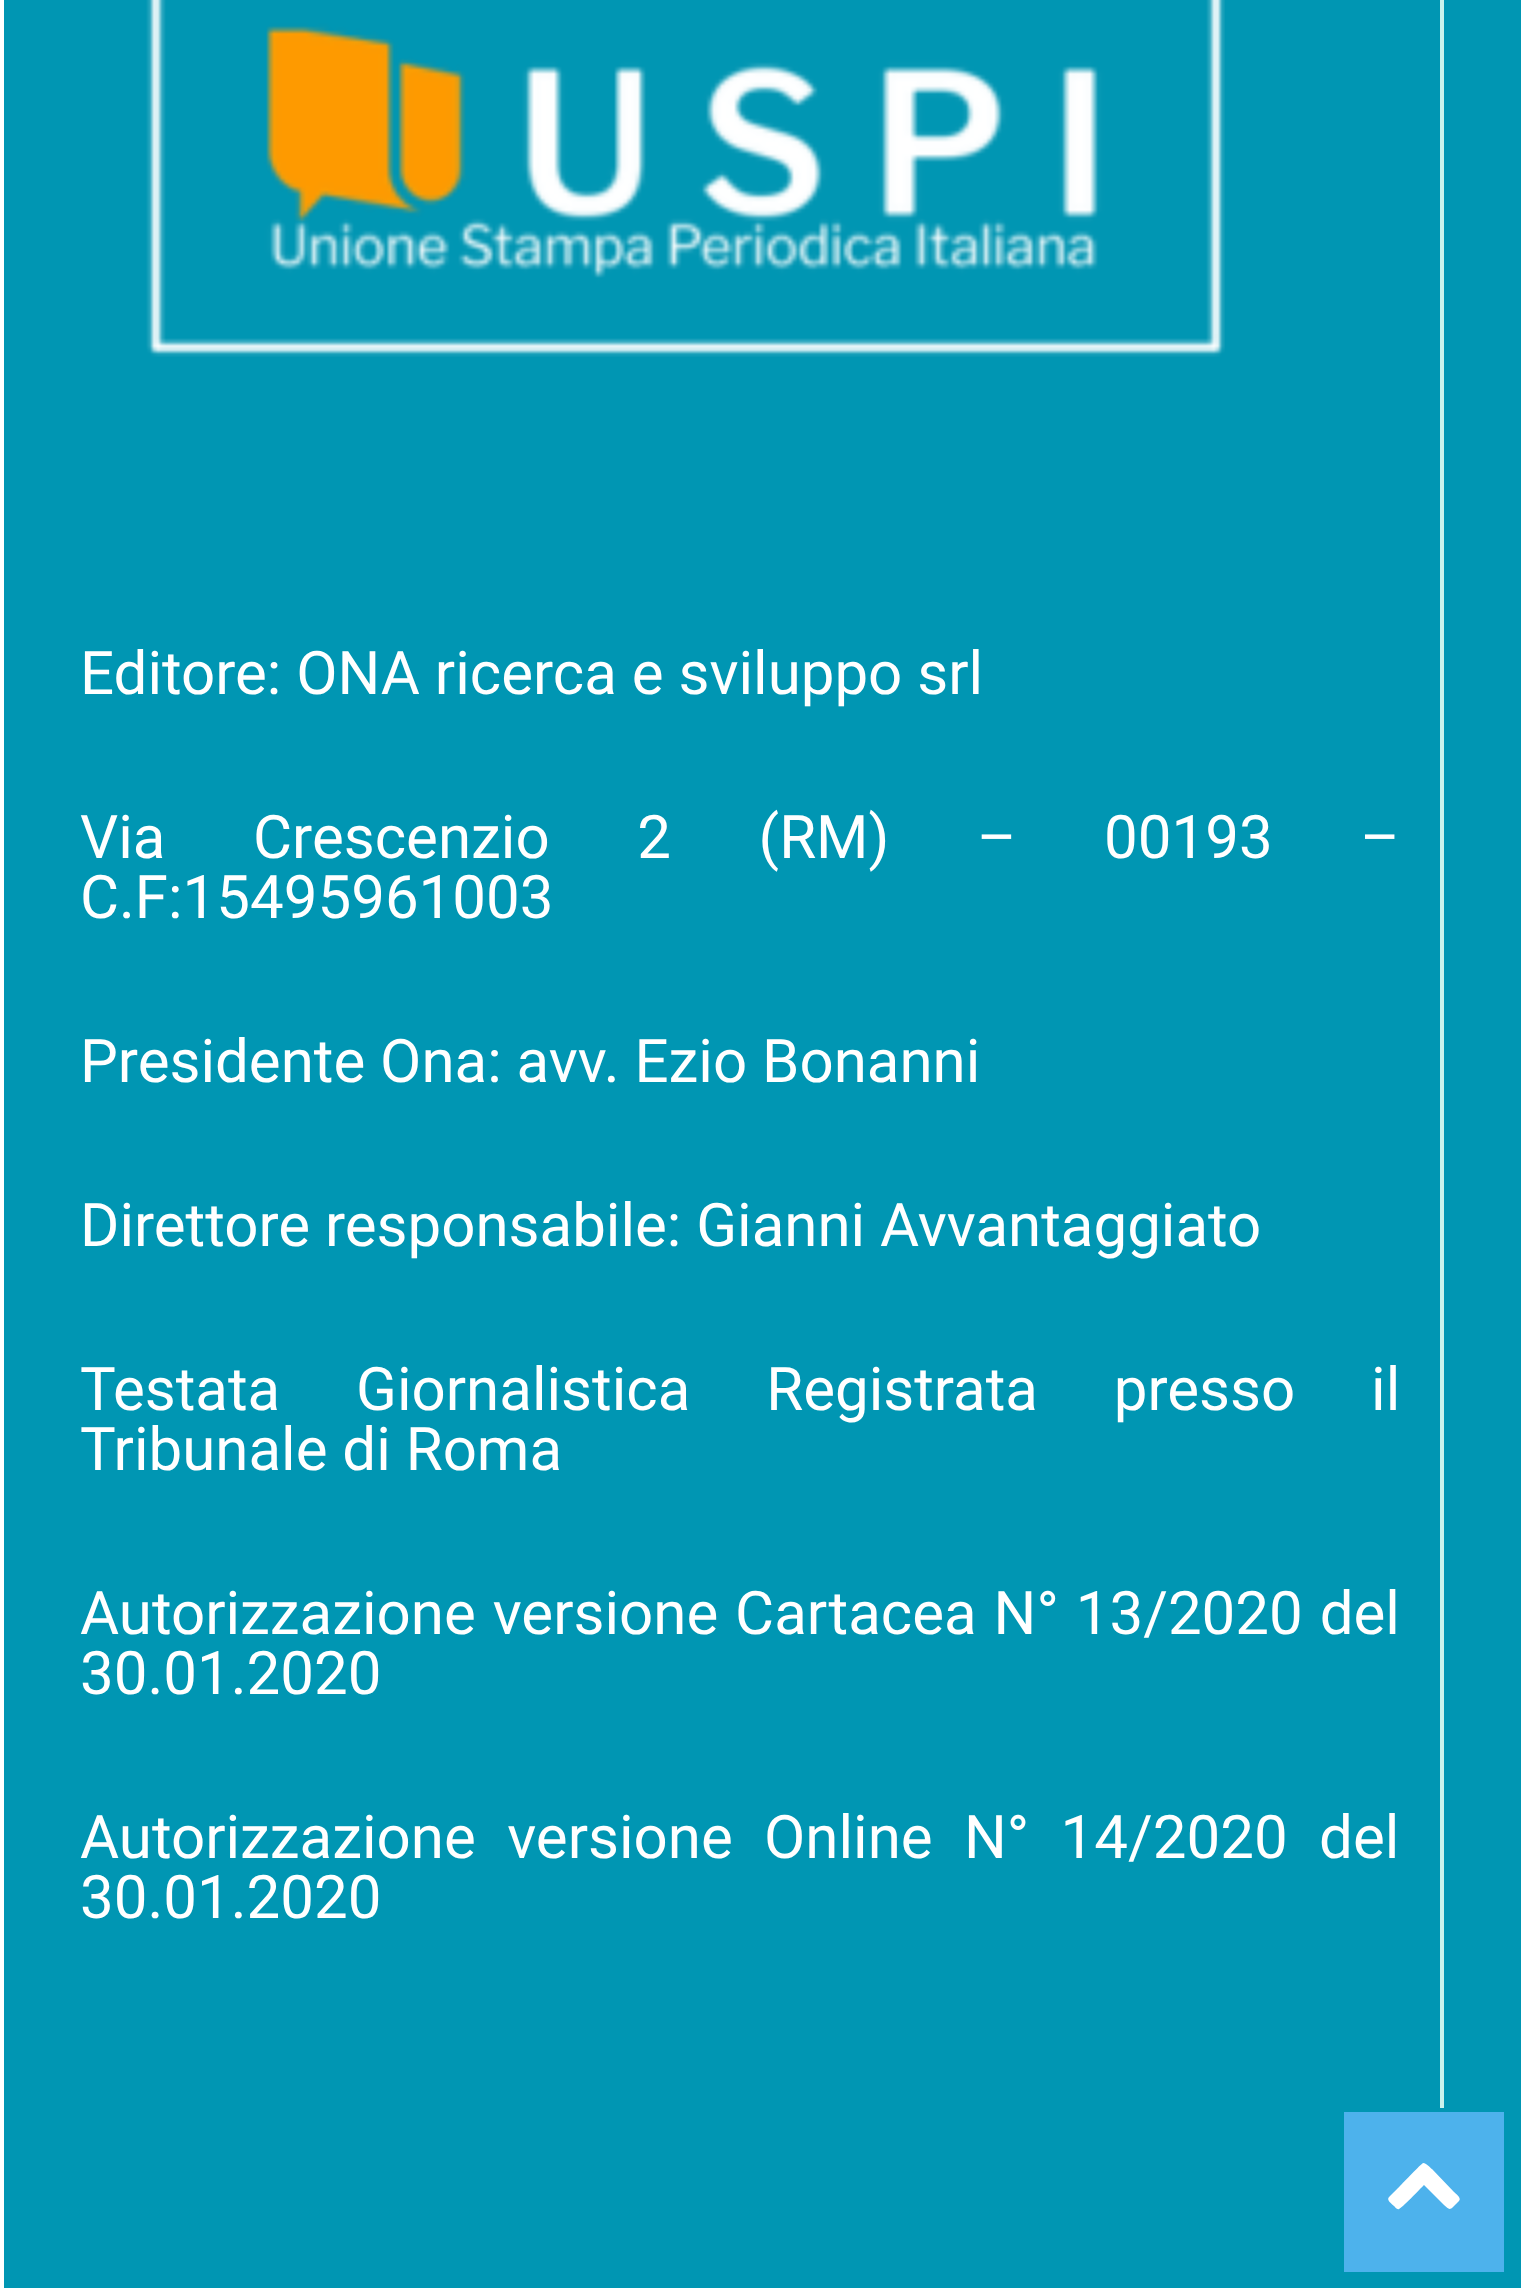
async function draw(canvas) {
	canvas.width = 1521;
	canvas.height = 2288;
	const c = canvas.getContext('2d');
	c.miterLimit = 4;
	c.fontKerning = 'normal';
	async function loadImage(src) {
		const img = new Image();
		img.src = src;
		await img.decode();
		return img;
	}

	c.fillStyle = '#fff';
	c.fillRect(0, 0, 1521, 2288);
	c.fillStyle = '#0096b3';
	c.fillRect(4, 0, 1517, 2288);
	c.fillStyle = '#c9f2ed';
	c.fillRect(1440, 0, 4, 2108);
	c.drawImage(await loadImage('img1.png'), 146, 0, 1079, 357);
	c.font = '60px Roboto';
	c.fillStyle = '#fff';
	c.fillText('Editore: ONA ricerca e sviluppo srl', 80, 694);
	c.wordSpacing = '72.75px';
	c.fillText('Via Crescenzio 2 (RM) – 00193 –', 80, 858);
	c.wordSpacing = '0px';
	for (const [text, x, y] of [
		['C.F:15495961003', 80, 918],
		['Presidente Ona: avv. Ezio Bonanni', 80, 1082],
		['Direttore responsabile: Gianni Avvantaggiato', 80, 1246],
	]) {
		c.fillText(text, x, y);
	}
	c.wordSpacing = '61px';
	c.fillText('Testata Giornalistica Registrata presso il', 80, 1410);
	c.wordSpacing = '0px';
	c.fillText('Tribunale di Roma', 80, 1470);
	c.wordSpacing = '2px';
	c.fillText('Autorizzazione versione Cartacea N° 13/2020 del', 80, 1634);
	c.wordSpacing = '0px';
	c.fillText('30.01.2020', 80, 1694);
	c.wordSpacing = '16.5px';
	c.fillText('Autorizzazione versione Online N° 14/2020 del', 80, 1858);
	c.wordSpacing = '0px';
	c.fillText('30.01.2020', 80, 1918);
	c.fillStyle = '#4db2ec';
	c.fillRect(1344, 2112, 160, 160);
	c.fillStyle = '#fff';
	c.beginPath();
	c.moveTo(1459, 2201);
	c.lineTo(1453, 2207);
	c.bezierCurveTo(1449, 2211, 1448, 2208, 1444, 2205);
	c.lineTo(1424, 2185);
	c.bezierCurveTo(1421, 2188, 1401, 2209, 1399, 2209);
	c.bezierCurveTo(1397, 2210, 1395, 2207, 1394, 2206);
	c.bezierCurveTo(1392, 2204, 1386, 2200, 1389, 2197);
	c.lineTo(1400, 2186);
	c.bezierCurveTo(1403, 2183, 1421, 2164, 1423, 2163);
	c.bezierCurveTo(1427, 2163, 1431, 2169, 1432, 2169);
	c.lineTo(1454, 2192);
	c.bezierCurveTo(1455, 2193, 1462, 2198, 1459, 2201);
	c.closePath();
	c.fill();
}

draw(document.querySelector('canvas'));
